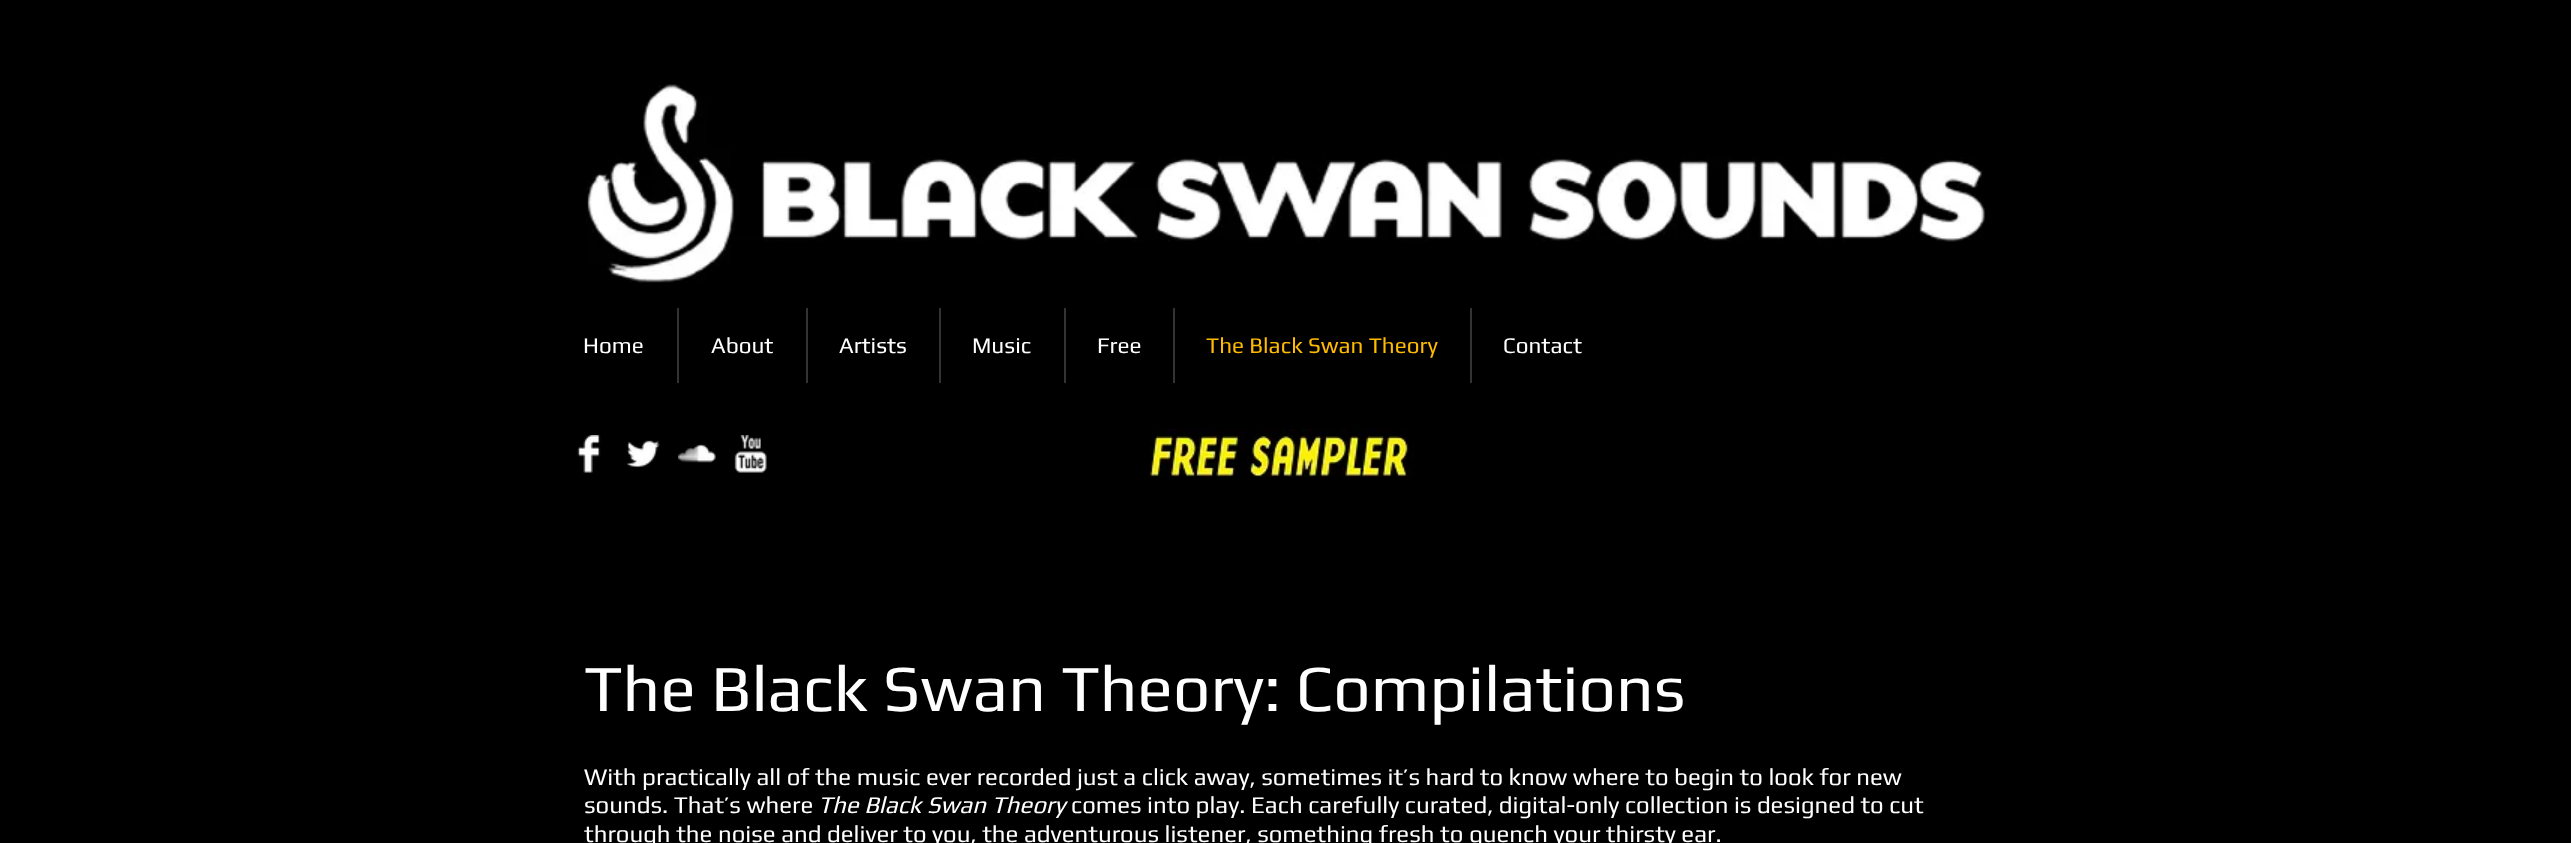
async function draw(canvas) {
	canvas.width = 2571;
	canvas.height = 843;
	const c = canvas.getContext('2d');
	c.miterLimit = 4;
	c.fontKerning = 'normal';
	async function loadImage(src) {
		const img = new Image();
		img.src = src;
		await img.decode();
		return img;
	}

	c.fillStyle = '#000';
	c.fillRect(0, 0, 2571, 843);
	c.drawImage(await loadImage('img1.png'), 586, 84, 1399, 199);
	c.font = '22.5px Play';
	c.fillStyle = '#fff';
	c.fillText('Home', 583, 353);
	c.fillStyle = '#333';
	c.fillRect(677, 308, 2, 75);
	c.fillStyle = '#fff';
	c.fillText('About', 711, 353);
	c.fillStyle = '#333';
	c.fillRect(806, 308, 2, 75);
	c.fillStyle = '#fff';
	c.fillText('Artists', 839, 353);
	c.fillStyle = '#333';
	c.fillRect(939, 308, 2, 75);
	c.fillStyle = '#fff';
	c.fillText('Music', 972, 353);
	c.fillStyle = '#333';
	c.fillRect(1064, 308, 2, 75);
	c.fillStyle = '#fff';
	c.fillText('Free', 1097, 353);
	c.fillStyle = '#333';
	c.fillRect(1173, 308, 2, 75);
	c.fillStyle = '#fb0';
	c.fillText('The Black Swan Theory', 1206, 353);
	c.fillStyle = '#333';
	c.fillRect(1470, 308, 2, 75);
	c.fillStyle = '#fff';
	c.fillText('Contact', 1503, 353);
	c.drawImage(await loadImage('img2.png'), 577, 435, 24, 38);
	c.drawImage(await loadImage('img3.png'), 626, 440, 34, 28);
	c.drawImage(await loadImage('img4.png'), 678, 444, 38, 19);
	c.drawImage(await loadImage('img5.png'), 734, 435, 33, 38);
	c.drawImage(await loadImage('img6.png'), 1150, 429, 265, 48);
	c.font = '66px Play';
	c.fillText('The Black Swan Theory: Compilations', 584, 711);
	c.font = '24px Play';
	c.fillText('With practically all of the music ever recorded just a click away, sometimes it’s hard to know where to begin to look for new', 584, 785);
	c.fillText('sounds. That’s where', 584, 813);
	c.font = 'italic 24px Play';
	c.fillText('The Black Swan Theory', 818, 813);
	c.font = '24px Play';
	c.fillText('comes into play. Each carefully curated, digital-only collection is designed to cut', 1071, 813);
	c.fillText('through the noise and deliver to you, the adventurous listener, something fresh to quench your thirsty ear.', 584, 842);
}

draw(document.querySelector('canvas'));
